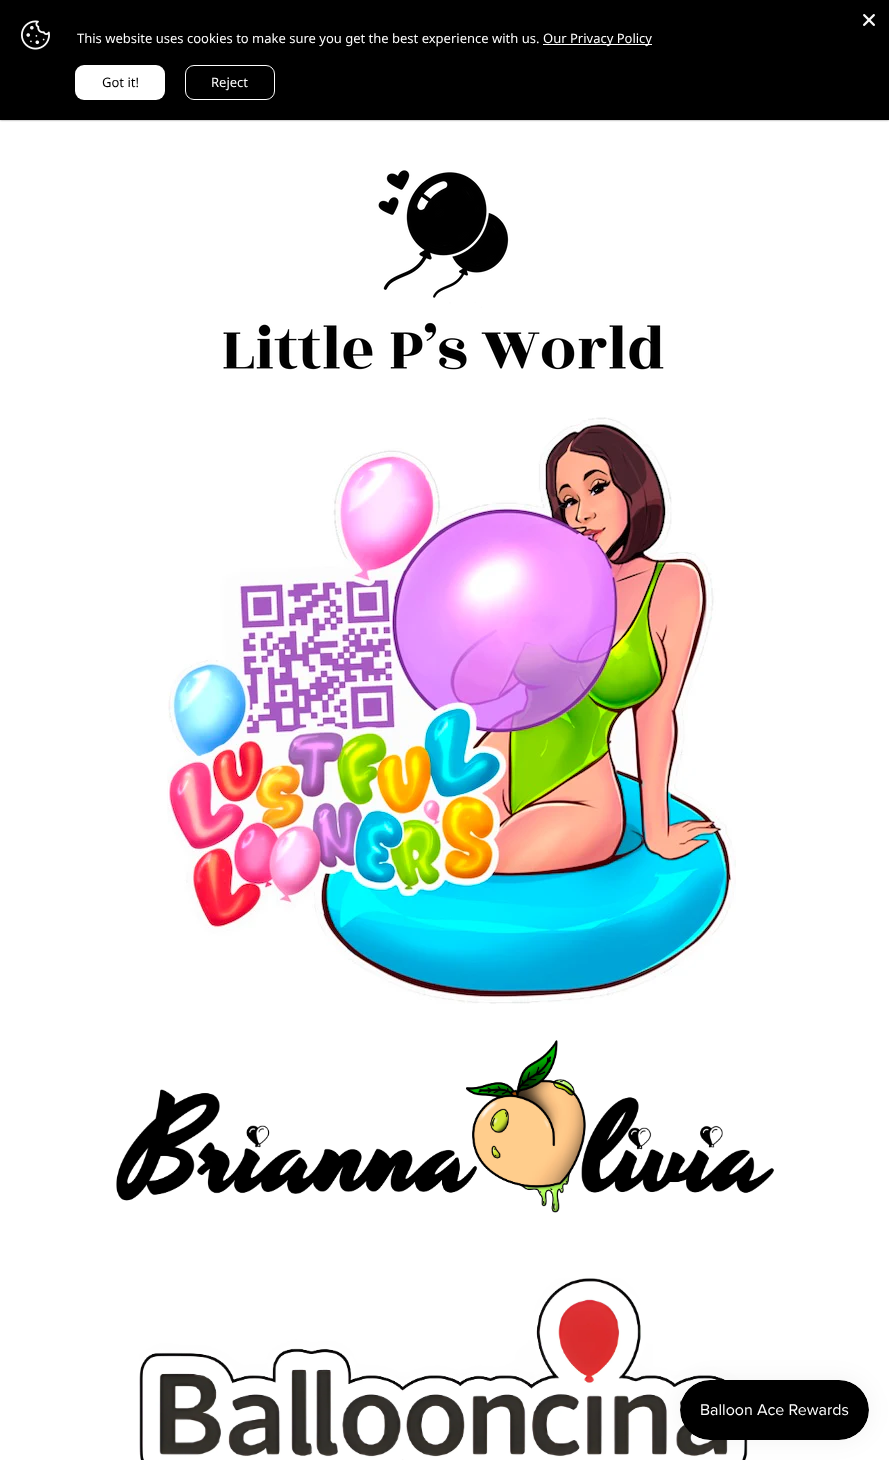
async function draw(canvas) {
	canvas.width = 889;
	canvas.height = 1460;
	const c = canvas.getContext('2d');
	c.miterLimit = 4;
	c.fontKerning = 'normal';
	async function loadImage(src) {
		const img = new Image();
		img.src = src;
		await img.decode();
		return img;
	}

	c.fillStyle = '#fff';
	c.fillRect(0, 0, 889, 1460);
	c.fillStyle = '#00000080';
	c.filter = 'blur(1px)';
	c.beginPath();
	c.rect(0, 0, 889, 120);
	c.fill();
	c.filter = 'none';
	c.fillStyle = '#000';
	c.fillRect(0, 0, 889, 120);
	c.drawImage(await loadImage('img1.png'), 863, 14, 12, 12);
	c.drawImage(await loadImage('img2.png'), 21, 20, 29, 30);
	c.font = '13px Noto Sans';
	c.fillStyle = '#fff';
	c.fillText('This website uses cookies to make sure you get the best experience with us.', 77, 43);
	c.fillRect(543, 44, 109, 1);
	c.fillText('Our Privacy Policy', 543, 43);
	c.beginPath();
	c.roundRect(75, 65, 90, 35, 9);
	c.fill();
	c.fillStyle = '#000';
	c.fillText('Got it!', 102, 87);
	c.beginPath();
	c.roundRect(185.5, 65.5, 89, 34, 8.5);
	c.strokeStyle = '#fff';
	c.stroke();
	c.fillStyle = '#fff';
	c.fillText('Reject', 211, 87);
	c.drawImage(await loadImage('img3.png'), 223, 170, 441, 200);
	c.drawImage(await loadImage('img4.png'), 167, 417, 569, 587);
	c.drawImage(await loadImage('img5.png'), 116, 1040, 658, 173);
	c.drawImage(await loadImage('img6.png'), 139, 1278, 609, 182);
	c.fillStyle = '#0000000d';
	c.filter = 'blur(12.5px)';
	c.beginPath();
	c.roundRect(680, 1380, 189, 60, 30);
	c.fill();
	c.filter = 'none';
	c.drawImage(await loadImage('img7.png'), 680, 1380, 189, 60);
}

draw(document.querySelector('canvas'));
